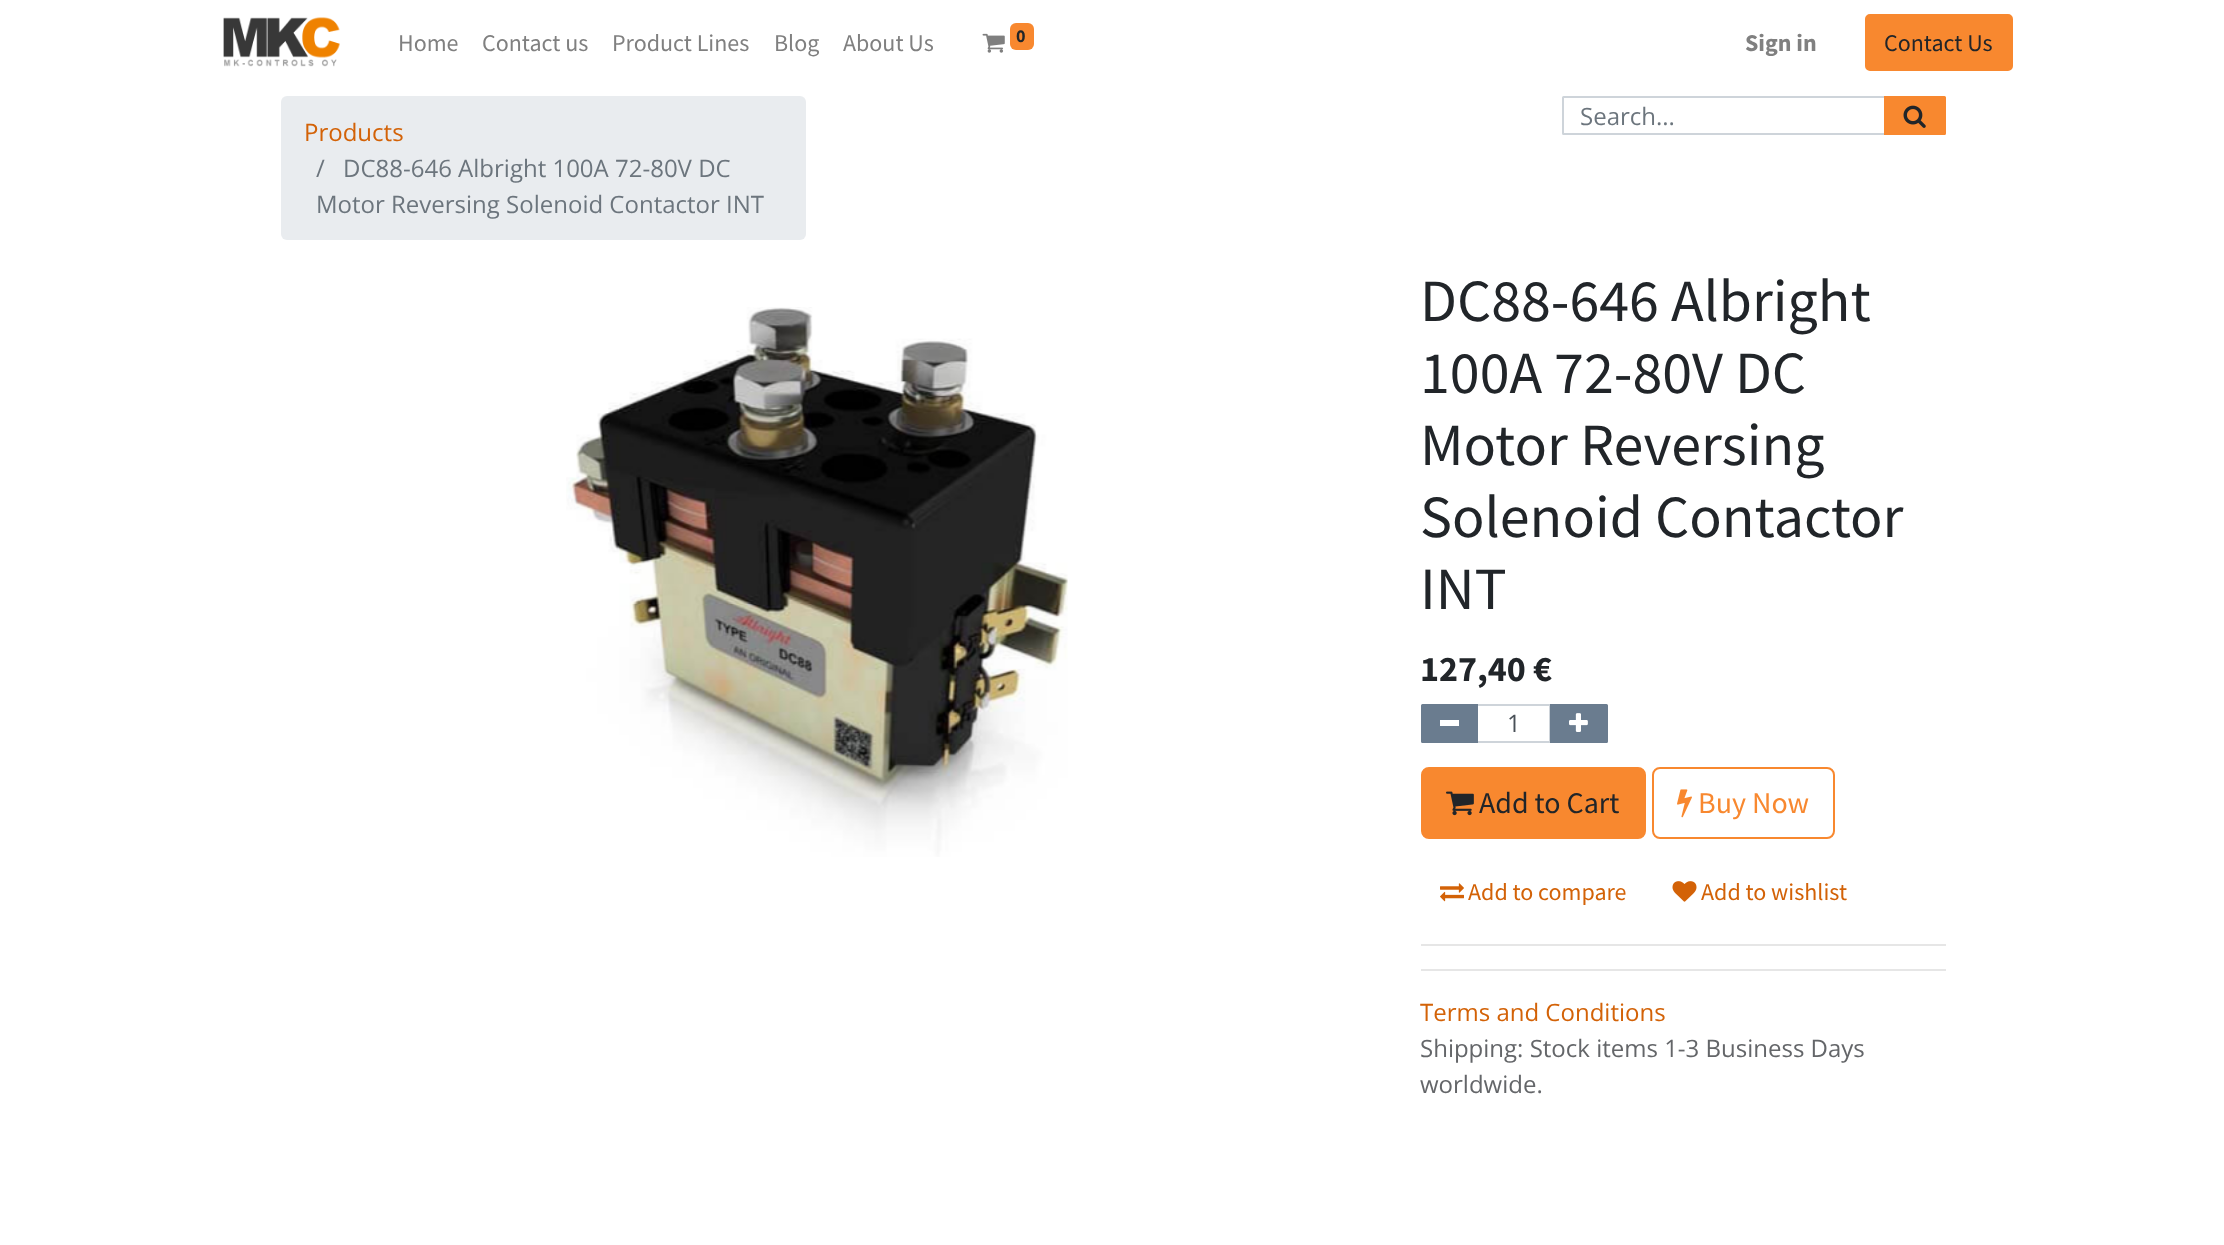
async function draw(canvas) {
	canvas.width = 2224;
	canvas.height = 1245;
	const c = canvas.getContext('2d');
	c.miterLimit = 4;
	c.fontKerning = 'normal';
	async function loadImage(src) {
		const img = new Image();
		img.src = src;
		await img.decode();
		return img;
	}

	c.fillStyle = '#fff';
	c.fillRect(0, 0, 2224, 1245);
	c.drawImage(await loadImage('img1.png'), 223, 17, 117, 50);
	c.font = '24px Source Sans Pro';
	c.fillStyle = '#808080';
	for (const [text, x, y] of [
		['Home', 398, 51],
		['Contact us', 482, 51],
		['Product Lines', 612, 51],
		['Blog', 774, 51],
		['About Us', 843, 51],
	]) {
		c.fillText(text, x, y);
	}
	c.drawImage(await loadImage('img2.png'), 982, 33, 23, 20);
	c.fillStyle = '#f8882f';
	c.beginPath();
	c.roundRect(1010, 23, 24, 27, 6);
	c.fill();
	c.font = 'bold 18px Source Sans Pro';
	c.fillStyle = '#212529';
	c.fillText('0', 1016, 42);
	c.font = 'bold 24px Source Sans Pro';
	c.fillStyle = '#808080';
	c.fillText('Sign in', 1745, 51);
	c.fillStyle = '#f8882f';
	c.beginPath();
	c.roundRect(1866, 15, 146, 55, 4);
	c.fill();
	c.strokeStyle = '#f8882f';
	c.lineWidth = 2;
	c.stroke();
	c.font = '24px Source Sans Pro';
	c.fillStyle = '#212529';
	c.fillText('Contact Us', 1884, 51);
	c.beginPath();
	c.roundRect(1563, 97, 322, 37, [0.5, 0, 0, 0.5]);
	c.strokeStyle = '#ced4da';
	c.stroke();
	c.font = '24px Open Sans';
	c.fillStyle = '#6c757d';
	c.fillText('Search...', 1580, 125);
	c.fillStyle = '#f8882f';
	c.beginPath();
	c.roundRect(1885, 97, 60, 37, [0, 0.5, 0.5, 0]);
	c.fill();
	c.strokeStyle = '#f8882f';
	c.stroke();
	c.drawImage(await loadImage('img3.png'), 1903, 105, 23, 23);
	c.fillStyle = '#e9ecef';
	c.beginPath();
	c.roundRect(281, 96, 525, 144, 6);
	c.fill();
	c.fillStyle = '#d36207';
	c.fillText('Products', 304, 141);
	c.fillStyle = '#6c757d';
	for (const [text, x, y] of [
		['/', 316, 177],
		['DC88-646 Albright 100A 72-80V DC', 343, 177],
		['Motor Reversing Solenoid Contactor INT', 316, 213],
	]) {
		c.fillText(text, x, y);
	}
	c.drawImage(await loadImage('img4.png'), 566, 307, 502, 550);
	c.font = '60px Source Sans Pro';
	c.fillStyle = '#212529';
	for (const [text, x, y] of [
		['DC88-646 Albright', 1420, 321],
		['100A 72-80V DC', 1420, 393],
		['Motor Reversing', 1420, 465],
		['Solenoid Contactor', 1420, 537],
		['INT', 1420, 609],
	]) {
		c.fillText(text, x, y);
	}
	c.font = 'bold 36px Source Sans Pro';
	c.fillText('127,40 €', 1420, 681);
	c.strokeStyle = '#ced4da';
	c.strokeRect(1477, 705, 73, 37);
	c.fillStyle = '#6a7c8f';
	c.beginPath();
	c.roundRect(1422, 705, 55, 37, [0.5, 0, 0, 0.5]);
	c.fill();
	c.strokeStyle = '#6a7c8f';
	c.stroke();
	c.fillStyle = '#fff';
	c.fillRect(1440, 720, 19, 6);
	c.font = '24px Open Sans';
	c.fillStyle = '#495057';
	c.fillText('1', 1507, 732);
	c.fillStyle = '#6a7c8f';
	c.beginPath();
	c.roundRect(1551, 705, 56, 37, [0, 0.5, 0.5, 0]);
	c.fill();
	c.stroke();
	c.drawImage(await loadImage('img5.png'), 1569, 713, 19, 19);
	c.fillStyle = '#f8882f';
	c.beginPath();
	c.roundRect(1422, 768, 223, 70, 7);
	c.fill();
	c.strokeStyle = '#f8882f';
	c.stroke();
	c.drawImage(await loadImage('img6.png'), 1446, 791, 28, 25);
	c.font = '30px Source Sans Pro';
	c.fillStyle = '#212529';
	c.fillText('Add to Cart', 1479, 813);
	c.beginPath();
	c.roundRect(1653, 768, 181, 70, 7);
	c.stroke();
	c.drawImage(await loadImage('img7.png'), 1677, 789, 15, 29);
	c.fillStyle = '#f8882f';
	c.fillText('Buy Now', 1698, 813);
	c.drawImage(await loadImage('img8.png'), 1440, 883, 24, 19);
	c.font = '24px Source Sans Pro';
	c.fillStyle = '#d36207';
	c.fillText('Add to compare', 1468, 900);
	c.drawImage(await loadImage('img9.png'), 1672, 881, 25, 21);
	c.fillText('Add to wishlist', 1701, 900);
	c.fillStyle = '#e6e6e6';
	c.fillRect(1421, 944, 525, 2);
	c.fillRect(1421, 969, 525, 2);
	c.font = '24px Open Sans';
	c.fillStyle = '#d36207';
	c.fillText('Terms and Conditions', 1420, 1021);
	c.fillStyle = '#646669';
	c.fillText('Shipping: Stock items 1-3 Business Days', 1420, 1057);
	c.fillText('worldwide.', 1420, 1093);
}

draw(document.querySelector('canvas'));
